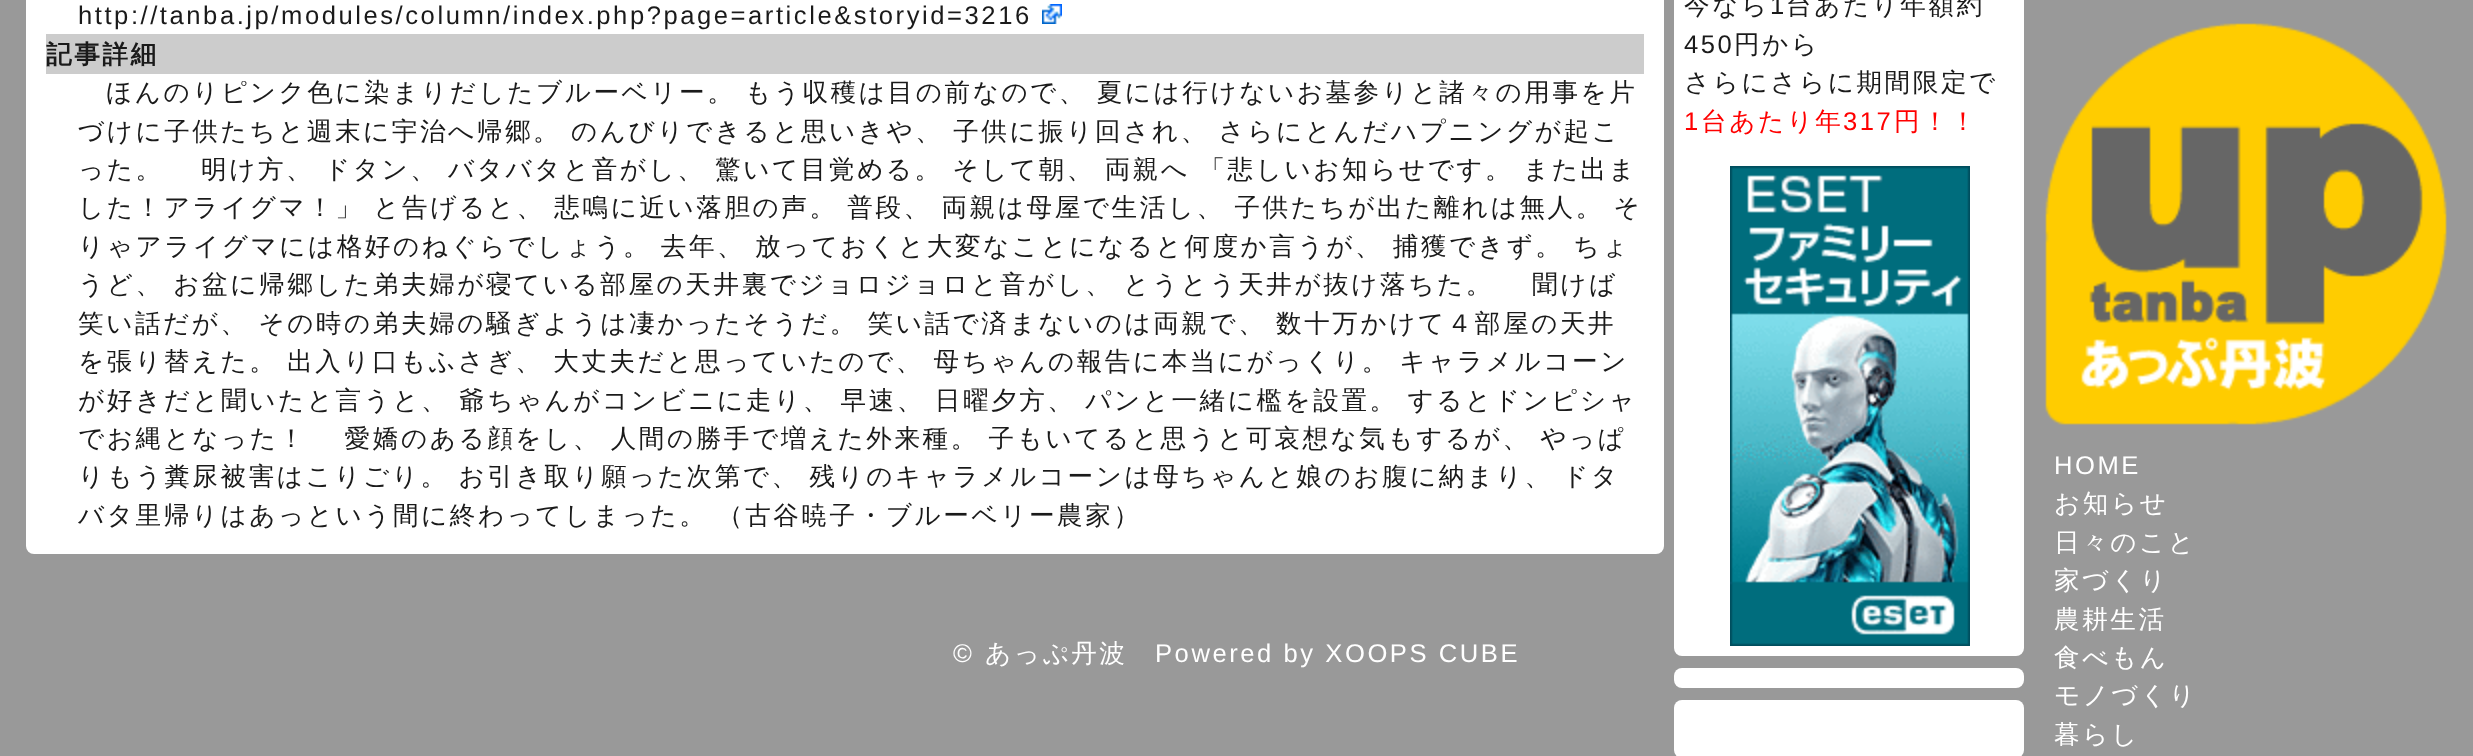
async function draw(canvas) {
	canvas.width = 2473;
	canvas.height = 756;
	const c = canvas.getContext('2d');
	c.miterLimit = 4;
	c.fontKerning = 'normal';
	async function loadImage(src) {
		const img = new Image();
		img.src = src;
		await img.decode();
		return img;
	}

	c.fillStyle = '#999';
	c.fillRect(0, 0, 2473, 756);
	c.fillStyle = '#fff';
	c.beginPath();
	c.roundRect(26, -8, 1638, 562, 8);
	c.fill();
	c.letterSpacing = '2.55px';
	c.font = '25.6px Liberation Sans';
	c.fillStyle = '#1a1a1a';
	c.fillText('http://tanba.jp/modules/column/index.php?page=article&storyid=3216', 78, 24);
	c.drawImage(await loadImage('img1.png'), 1042, 4, 20, 20);
	c.fillStyle = '#ccc';
	c.fillRect(46, 34, 1598, 40);
	c.font = 'bold 25.6px WenQuanYi Zen Hei';
	c.fillStyle = '#1a1a1a';
	c.fillText('記事詳細', 46, 63);
	c.wordSpacing = '-0.5px';
	c.font = '500 25.6px WenQuanYi Zen Hei';
	c.fillText('ほんのりピンク色に染まりだしたブルーベリー。 もう収穫は目の前なので、 夏には行けないお墓参りと諸々の用事を片', 106, 101);
	c.fillText('づけに子供たちと週末に宇治へ帰郷。 のんびりできると思いきや、 子供に振り回され、 さらにとんだハプニングが起こ', 78, 140);
	c.wordSpacing = '0px';
	c.fillText('った。', 78, 178);
	c.wordSpacing = '-0.5px';
	for (const [text, x, y] of [
		['明け方、 ドタン、 バタバタと音がし、 驚いて目覚める。 そして朝、 両親へ 「悲しいお知らせです。 また出ま', 201, 178],
		['した！アライグマ！」 と告げると、 悲鳴に近い落胆の声。 普段、 両親は母屋で生活し、 子供たちが出た離れは無人。 そ', 78, 216],
		['りゃアライグマには格好のねぐらでしょう。 去年、 放っておくと大変なことになると何度か言うが、 捕獲できず。 ちょ', 78, 255],
		['うど、 お盆に帰郷した弟夫婦が寝ている部屋の天井裏でジョロジョロと音がし、 とうとう天井が抜け落ちた。', 78, 293],
	]) {
		c.fillText(text, x, y);
	}
	c.wordSpacing = '0px';
	c.fillText('聞けば', 1532, 293);
	c.wordSpacing = '-0.5px';
	for (const [text, x, y] of [
		['笑い話だが、 その時の弟夫婦の騒ぎようは凄かったそうだ。 笑い話で済まないのは両親で、 数十万かけて４部屋の天井', 78, 332],
		['を張り替えた。 出入り口もふさぎ、 大丈夫だと思っていたので、 母ちゃんの報告に本当にがっくり。 キャラメルコーン', 78, 370],
		['が好きだと聞いたと言うと、 爺ちゃんがコンビニに走り、 早速、 日曜夕方、 パンと一緒に檻を設置。 するとドンピシャ', 78, 409],
		['でお縄となった！ 　愛嬌のある顔をし、 人間の勝手で増えた外来種。 子もいてると思うと可哀想な気もするが、 やっぱ', 78, 447],
		['りもう糞尿被害はこりごり。 お引き取り願った次第で、 残りのキャラメルコーンは母ちゃんと娘のお腹に納まり、 ドタ', 78, 485],
	]) {
		c.fillText(text, x, y);
	}
	c.wordSpacing = '0px';
	c.fillText('バタ里帰りはあっという間に終わってしまった。', 78, 524);
	c.fillText('（古谷暁子・ブルーベリー農家）', 717, 524);
	c.fillStyle = '#fff';
	c.beginPath();
	c.roundRect(1674, -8, 350, 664, 8);
	c.fill();
	c.fillStyle = '#1a1a1a';
	c.fillText('今なら', 1684, 14);
	c.font = '25.6px Liberation Sans';
	c.fillText('1', 1770, 14);
	c.font = '500 25.6px WenQuanYi Zen Hei';
	c.fillText('台あたり年額約', 1786, 14);
	c.font = '25.6px Liberation Sans';
	c.fillText('450', 1684, 53);
	c.font = '500 25.6px WenQuanYi Zen Hei';
	c.fillText('円から', 1734, 53);
	c.fillText('さらにさらに期間限定で', 1684, 91);
	c.font = '25.6px Liberation Sans';
	c.fillStyle = '#f00';
	c.fillText('1', 1684, 130);
	c.font = '500 25.6px WenQuanYi Zen Hei';
	c.fillText('台あたり年', 1701, 130);
	c.font = '25.6px Liberation Sans';
	c.fillText('317', 1843, 130);
	c.font = '500 25.6px WenQuanYi Zen Hei';
	c.fillText('円！！', 1894, 130);
	c.drawImage(await loadImage('img2.png'), 1730, 166, 240, 480);
	c.fillStyle = '#fff';
	c.beginPath();
	c.roundRect(1674, 668, 350, 20, 8);
	c.fill();
	c.beginPath();
	c.roundRect(1674, 700, 350, 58, 8);
	c.fill();
	c.drawImage(await loadImage('img3.png'), 2045, 23, 402, 402);
	c.font = '25.6px Liberation Sans';
	c.fillText('HOME', 2054, 474);
	c.font = '500 25.6px WenQuanYi Zen Hei';
	for (const [text, x, y] of [
		['お知らせ', 2054, 512],
		['日々のこと', 2054, 551],
		['家づくり', 2054, 589],
		['農耕生活', 2054, 628],
		['食べもん', 2054, 666],
		['モノづくり', 2054, 704],
		['暮らし', 2054, 743],
	]) {
		c.fillText(text, x, y);
	}
	c.font = '25.6px Liberation Sans';
	c.fillText('©', 953, 662);
	c.font = '500 25.6px WenQuanYi Zen Hei';
	c.fillText('あっぷ丹波', 985, 662);
	c.font = '25.6px Liberation Sans';
	c.fillText('Powered by XOOPS CUBE', 1155, 662);
}

draw(document.querySelector('canvas'));
